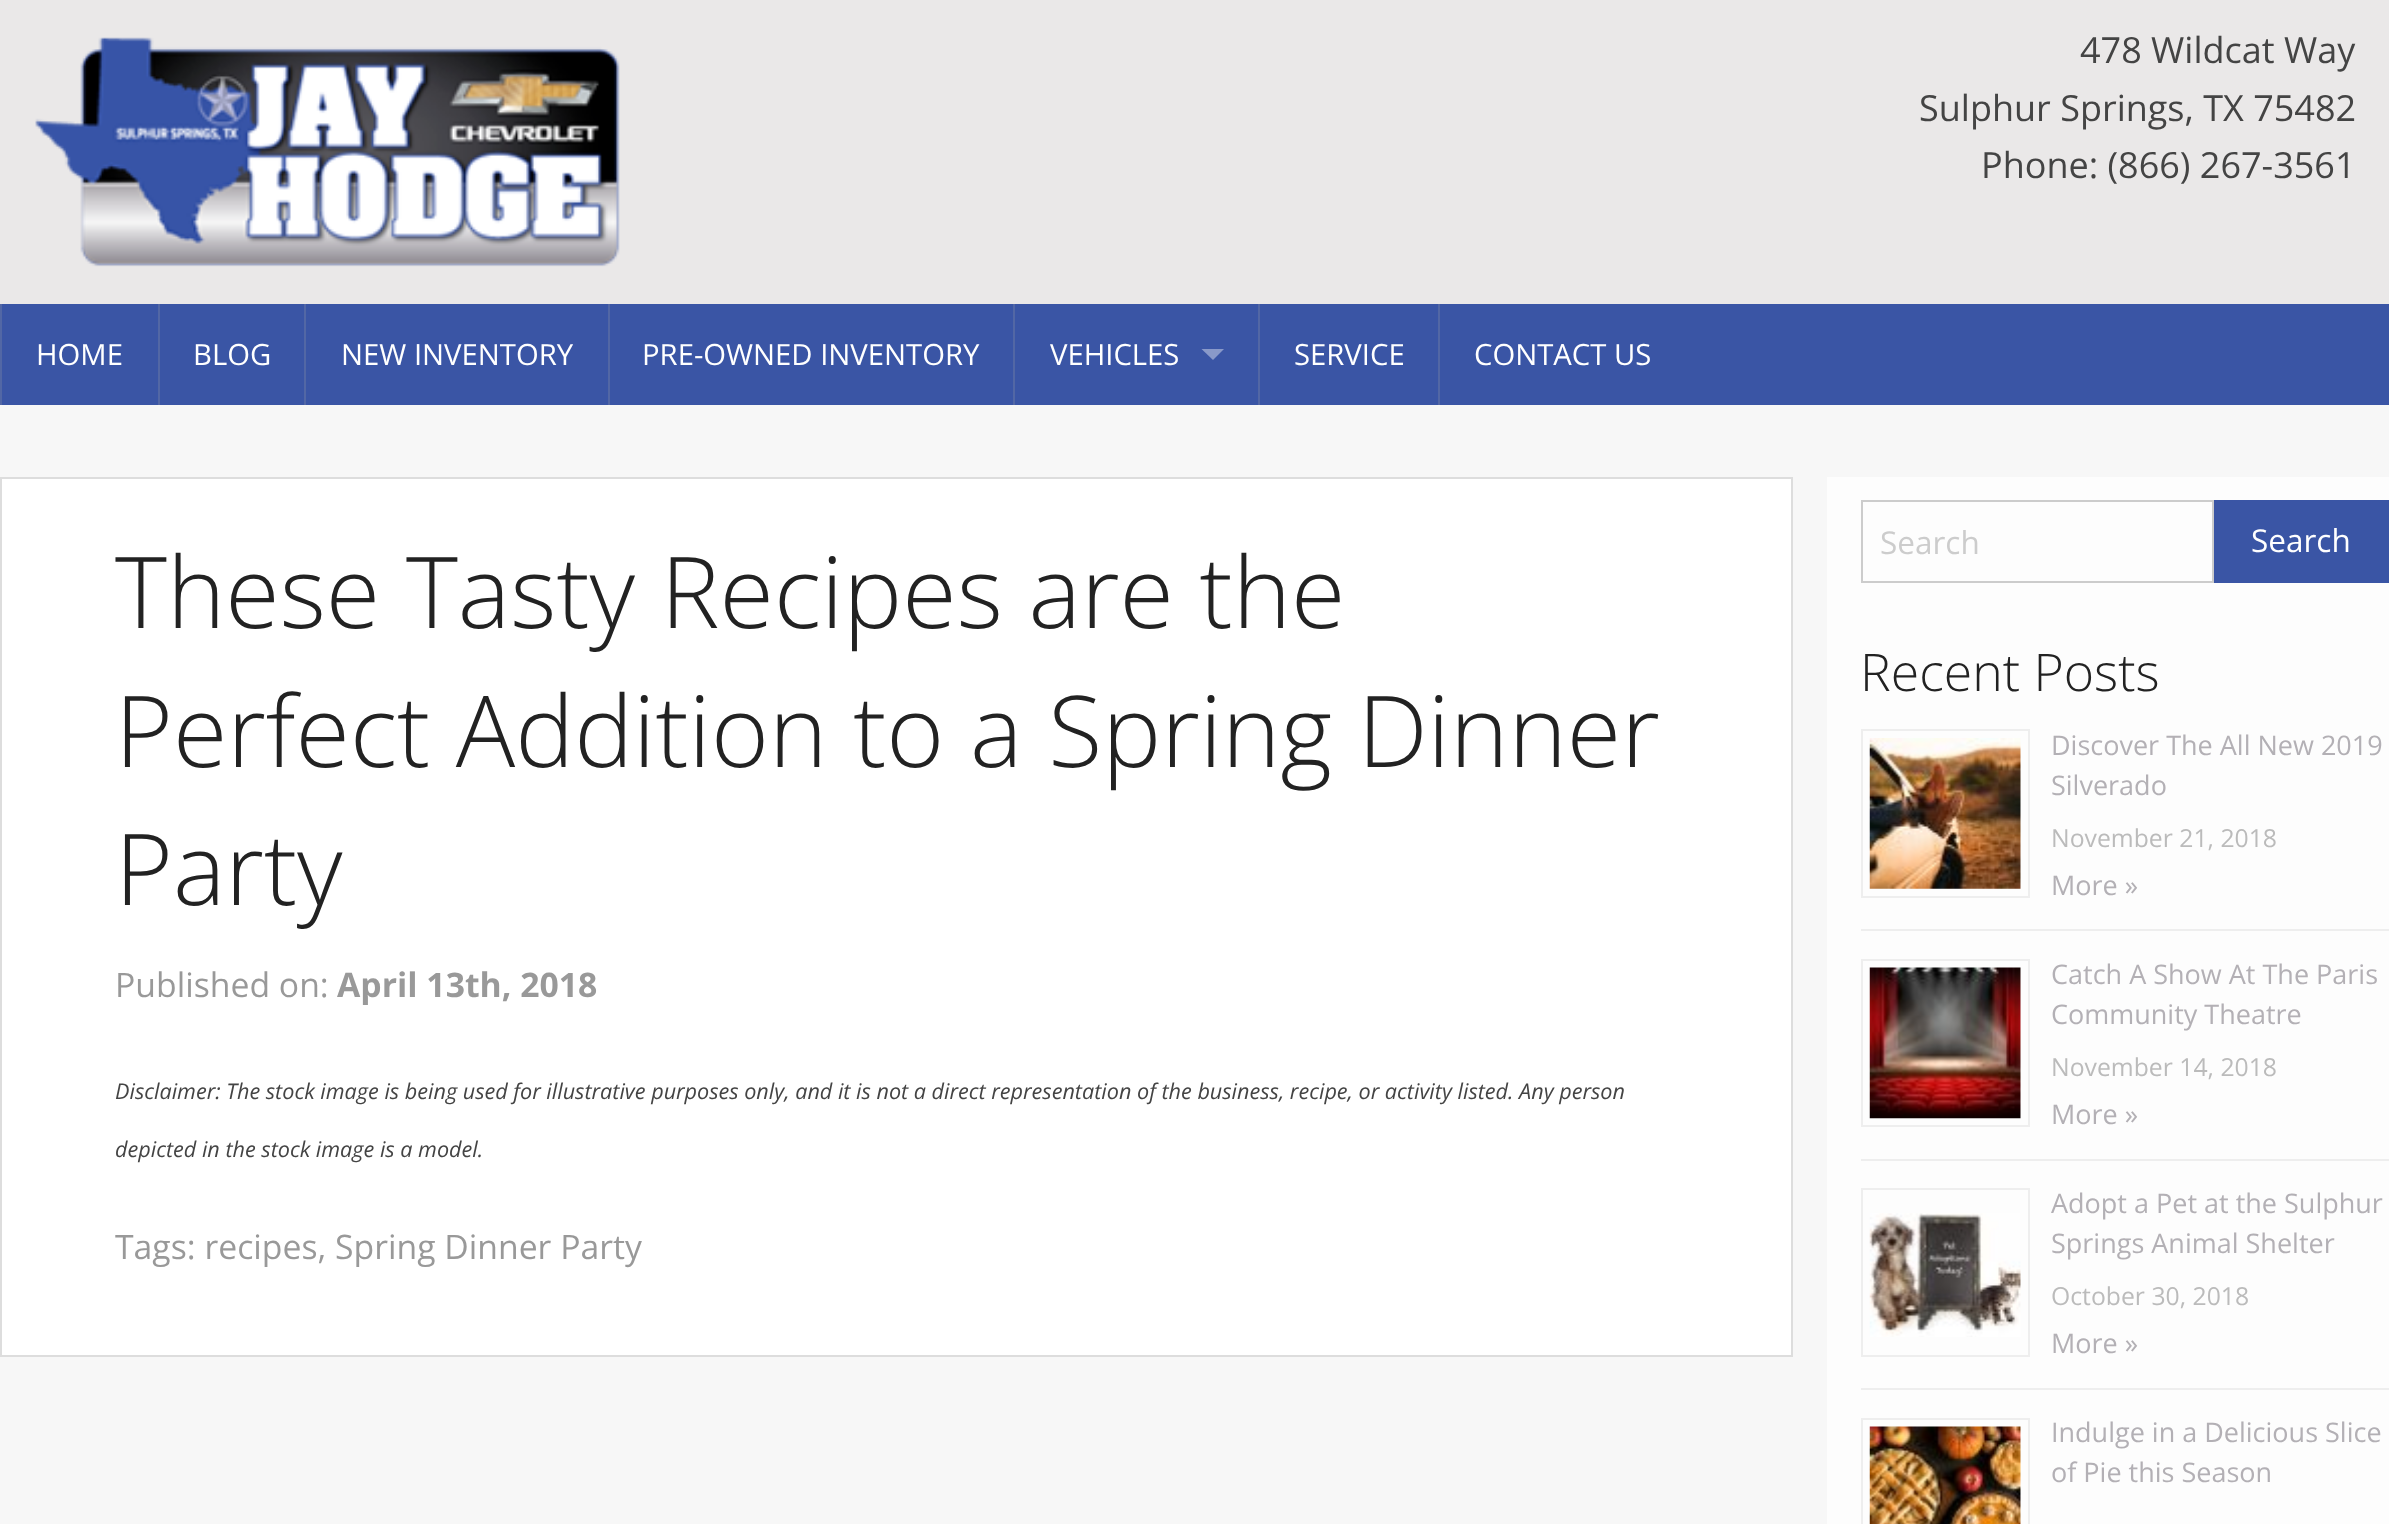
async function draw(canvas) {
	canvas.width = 2389;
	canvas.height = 1524;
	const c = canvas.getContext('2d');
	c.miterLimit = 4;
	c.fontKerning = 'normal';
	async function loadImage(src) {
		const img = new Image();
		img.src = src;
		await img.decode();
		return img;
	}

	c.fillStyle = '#f7f7f7';
	c.fillRect(0, 0, 2389, 1524);
	c.fillStyle = '#eae8e8';
	c.fillRect(0, 0, 2389, 304);
	c.drawImage(await loadImage('img1.png'), 35, 37, 585, 230);
	c.font = '36px Open Sans';
	c.fillStyle = '#444';
	for (const [text, x, y] of [
		['478 Wildcat Way', 2080, 63],
		['Sulphur Springs, TX 75482', 1919, 121],
		['Phone: (866) 267-3561', 1981, 178],
	]) {
		c.fillText(text, x, y);
	}
	c.fillStyle = '#3a55a5';
	c.fillRect(2, 304, 2387, 101);
	c.fillStyle = '#5267a5';
	c.fillRect(0, 304, 2, 101);
	c.font = '29.25px Open Sans';
	c.fillStyle = '#fff';
	c.fillText('HOME', 36, 365);
	c.fillStyle = '#5267a5';
	c.fillRect(158, 304, 2, 101);
	c.fillStyle = '#fff';
	c.fillText('BLOG', 193, 365);
	c.fillStyle = '#5267a5';
	c.fillRect(304, 304, 2, 101);
	c.fillStyle = '#fff';
	c.fillText('NEW INVENTORY', 341, 365);
	c.fillStyle = '#5267a5';
	c.fillRect(608, 304, 2, 101);
	c.fillStyle = '#fff';
	c.fillText('PRE-OWNED INVENTORY', 642, 365);
	c.fillStyle = '#5267a5';
	c.fillRect(1013, 304, 2, 101);
	c.fillStyle = '#fff';
	c.fillText('VEHICLES', 1050, 365);
	c.fillStyle = '#8999c9';
	c.beginPath();
	c.moveTo(1201.5, 349);
	c.lineTo(1224, 349);
	c.lineTo(1213, 360);
	c.closePath();
	c.fill();
	c.fillStyle = '#5267a5';
	c.fillRect(1258, 304, 2, 101);
	c.fillStyle = '#fff';
	c.fillText('SERVICE', 1294, 365);
	c.fillStyle = '#5267a5';
	c.fillRect(1438, 304, 2, 101);
	c.fillStyle = '#fff';
	c.fillText('CONTACT US', 1474, 365);
	c.beginPath();
	c.rect(1, 478, 1791, 878);
	c.fill();
	c.strokeStyle = '#ddd';
	c.lineWidth = 2;
	c.stroke();
	c.font = '300 99px Open Sans';
	c.fillStyle = '#222';
	for (const [text, x, y] of [
		['These Tasty Recipes are the', 115, 628],
		['Perfect Addition to a Spring Dinner', 115, 767],
		['Party', 115, 905],
	]) {
		c.fillText(text, x, y);
	}
	c.font = '33.75px Open Sans';
	c.fillStyle = '#999';
	c.fillText('Published on:', 115, 997);
	c.font = 'bold 33.75px Open Sans';
	c.fillText('April 13th, 2018', 337, 997);
	c.font = 'italic 21.6px Open Sans';
	c.fillStyle = '#444';
	c.fillText('Disclaimer: The stock image is being used for illustrative purposes only, and it is not a direct representation of the business, recipe, or activity listed. Any person', 115, 1099);
	c.fillText('depicted in the stock image is a model.', 115, 1157);
	c.font = '33.75px Open Sans';
	c.fillStyle = '#999';
	c.fillText('Tags: recipes, Spring Dinner Party', 115, 1259);
	c.fillStyle = '#fdfdfd';
	c.fillRect(1827, 477, 562, 1047);
	c.strokeStyle = '#ccc';
	c.strokeRect(1862, 501, 351, 81);
	c.font = '31.5px Open Sans';
	c.fillStyle = '#ccc';
	c.fillText('Search', 1880, 554);
	c.fillStyle = '#3a55a5';
	c.fillRect(2214, 500, 175, 83);
	c.fillStyle = '#fff';
	c.fillText('Search', 2251, 552);
	c.font = '300 51.75px Open Sans';
	c.fillStyle = '#222';
	c.fillText('Recent Posts', 1860, 691);
	c.fillStyle = '#eee';
	c.fillRect(1861, 929, 528, 2);
	c.strokeStyle = '#eee';
	c.strokeRect(1862, 730, 167, 167);
	c.drawImage(await loadImage('img2.png'), 1869, 738, 152, 151);
	c.font = '27px Open Sans';
	c.fillStyle = '#b3b0b5';
	c.fillText('Discover The All New 2019', 2051, 755);
	c.fillText('Silverado', 2051, 795);
	c.font = '24.75px Open Sans';
	c.fillStyle = '#bbb';
	c.fillText('November 21, 2018', 2051, 847);
	c.font = '27px Open Sans';
	c.fillStyle = '#b3b0b5';
	c.fillText('More »', 2051, 895);
	c.fillStyle = '#eee';
	c.fillRect(1861, 1159, 528, 2);
	c.strokeRect(1862, 960, 167, 166);
	c.drawImage(await loadImage('img3.png'), 1869, 967, 152, 152);
	c.fillStyle = '#b3b0b5';
	c.fillText('Catch A Show At The Paris', 2051, 984);
	c.fillText('Community Theatre', 2051, 1024);
	c.font = '24.75px Open Sans';
	c.fillStyle = '#bbb';
	c.fillText('November 14, 2018', 2051, 1076);
	c.font = '27px Open Sans';
	c.fillStyle = '#b3b0b5';
	c.fillText('More »', 2051, 1124);
	c.fillStyle = '#eee';
	c.fillRect(1861, 1388, 528, 2);
	c.strokeRect(1862, 1189, 167, 167);
	c.drawImage(await loadImage('img4.png'), 1869, 1213, 152, 124);
	c.fillStyle = '#b3b0b5';
	c.fillText('Adopt a Pet at the Sulphur', 2051, 1213);
	c.fillText('Springs Animal Shelter', 2051, 1253);
	c.font = '24.75px Open Sans';
	c.fillStyle = '#bbb';
	c.fillText('October 30, 2018', 2051, 1305);
	c.font = '27px Open Sans';
	c.fillStyle = '#b3b0b5';
	c.fillText('More »', 2051, 1353);
	c.strokeRect(1862, 1419, 167, 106);
	c.drawImage(await loadImage('img5.png'), 1869, 1426, 152, 98);
	c.fillText('Indulge in a Delicious Slice', 2051, 1442);
	c.fillText('of Pie this Season', 2051, 1482);
}

draw(document.querySelector('canvas'));
